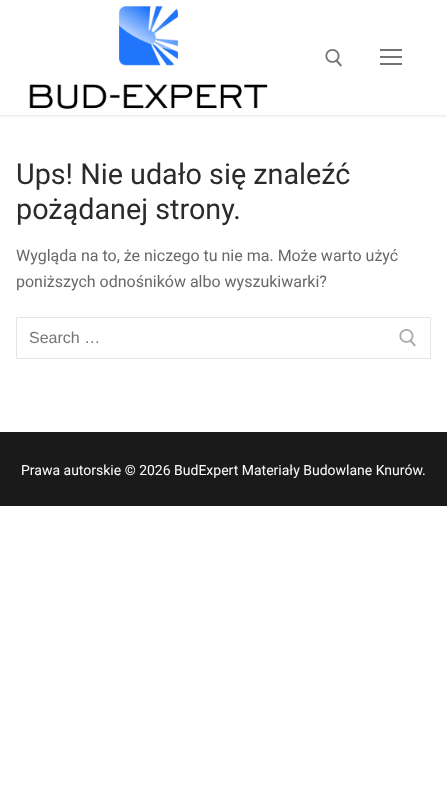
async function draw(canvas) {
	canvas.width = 447;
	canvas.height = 803;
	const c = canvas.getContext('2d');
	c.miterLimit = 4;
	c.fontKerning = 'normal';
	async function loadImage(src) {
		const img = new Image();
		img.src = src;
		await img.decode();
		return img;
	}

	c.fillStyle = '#fff';
	c.fillRect(0, 0, 447, 803);
	c.save();
	c.beginPath();
	c.rect(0, 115, 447, 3);
	c.clip();
	c.fillStyle = '#e1e5ea';
	c.filter = 'blur(1px)';
	c.beginPath();
	c.rect(0, 1, 447, 115);
	c.fill();
	c.filter = 'none';
	c.restore();
	c.drawImage(await loadImage('img1.png'), 29, 6, 239, 103);
	c.drawImage(await loadImage('img2.png'), 325, 49, 17, 18);
	for (const [x, y, w, h, color] of [
		[380, 56, 22, 2, '#737373'],
		[380, 49, 22, 2, '#737373'],
		[380, 63, 22, 2, '#737373'],
	]) {
		c.fillStyle = color;
		c.fillRect(x, y, w, h);
	}
	c.font = '28.75px Roboto';
	c.fillStyle = '#2b2b2b';
	c.fillText('Ups! Nie udało się znaleźć', 16, 184);
	c.fillText('pożądanej strony.', 16, 219);
	c.font = '16px Roboto';
	c.fillStyle = '#686868';
	c.fillText('Wygląda na to, że niczego tu nie ma. Może warto użyć', 16, 261);
	c.fillText('poniższych odnośników albo wyszukiwarki?', 16, 287);
	c.beginPath();
	c.roundRect(16.5, 317.5, 414, 41, 0.5);
	c.strokeStyle = '#e5e5e5';
	c.stroke();
	c.font = '16px Liberation Sans';
	c.fillStyle = '#757575';
	c.fillText('Search …', 29, 343);
	c.drawImage(await loadImage('img3.png'), 399, 329, 17, 18);
	c.fillStyle = '#1a1a1a';
	c.fillRect(0, 432, 447, 74);
	c.font = '14px Roboto';
	c.fillStyle = '#fdfdfd';
	c.fillText('Prawa autorskie © 2026 BudExpert Materiały Budowlane Knurów.', 21, 475);
}

draw(document.querySelector('canvas'));
